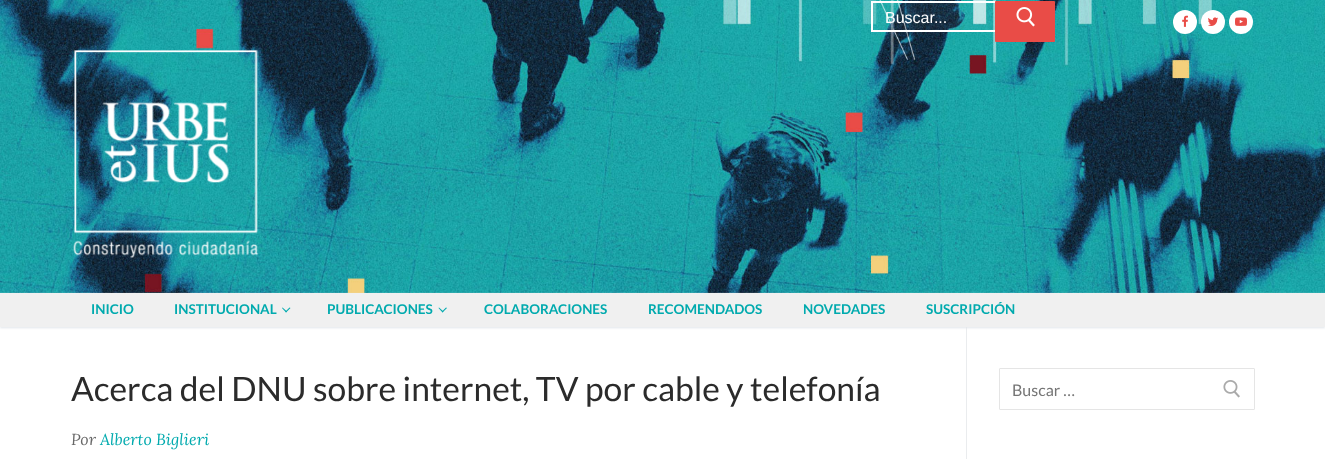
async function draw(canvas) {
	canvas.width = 1325;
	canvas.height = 459;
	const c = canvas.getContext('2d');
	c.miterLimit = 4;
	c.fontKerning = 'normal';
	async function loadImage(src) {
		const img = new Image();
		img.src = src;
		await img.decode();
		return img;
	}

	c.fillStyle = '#fff';
	c.fillRect(0, 0, 1325, 459);
	c.drawImage(await loadImage('img1.png'), 0, 0, 1325, 43);
	c.fillStyle = '#ffffff08';
	c.fillRect(871, 1, 124, 31);
	c.beginPath();
	c.rect(872, 2, 125, 29);
	c.strokeStyle = '#fff';
	c.lineWidth = 2;
	c.stroke();
	c.font = '16px Liberation Sans';
	c.fillStyle = '#fff';
	c.fillText('Buscar...', 885, 23);
	c.fillStyle = '#e94c47';
	c.beginPath();
	c.roundRect(995, 1, 60, 41, 1);
	c.fill();
	c.drawImage(await loadImage('img2.png'), 1016, 7, 19, 20);
	c.fillStyle = '#fff';
	c.beginPath();
	c.arc(1185, 22, 12, 0, 2 * Math.PI);
	c.fill();
	c.drawImage(await loadImage('img3.png'), 1182, 15, 6, 12);
	c.beginPath();
	c.arc(1213, 22, 12, 0, 2 * Math.PI);
	c.fill();
	c.drawImage(await loadImage('img4.png'), 1208, 17, 11, 9);
	c.beginPath();
	c.arc(1241, 22, 12, 0, 2 * Math.PI);
	c.fill();
	c.drawImage(await loadImage('img5.png'), 1235, 17, 12, 9);
	c.drawImage(await loadImage('img6.png'), 0, 43, 1325, 250);
	c.drawImage(await loadImage('img7.png'), 73, 50, 186, 208);
	c.fillStyle = '#eaecee';
	c.fillRect(966, 327, 1, 132);
	c.fillStyle = '#e1e5ea';
	c.filter = 'blur(1px)';
	c.beginPath();
	c.rect(0, 294, 1325, 34);
	c.fill();
	c.filter = 'none';
	c.fillStyle = '#f0f0f0';
	c.fillRect(0, 293, 1325, 34);
	c.font = 'bold 13.5px Lato';
	c.fillStyle = '#00aaae';
	c.fillText('INICIO', 91, 314);
	c.fillText('INSTITUCIONAL', 174, 314);
	c.beginPath();
	c.moveTo(286, 312.5);
	c.lineTo(282, 308);
	c.lineTo(282.5, 307.5);
	c.lineTo(287, 311.5);
	c.closePath();
	c.fill();
	c.beginPath();
	c.moveTo(286, 312.5);
	c.lineTo(285.5, 311.5);
	c.lineTo(289.5, 307.5);
	c.lineTo(290.5, 308);
	c.closePath();
	c.fill();
	c.fillText('PUBLICACIONES', 327, 314);
	c.beginPath();
	c.moveTo(442.5, 312.5);
	c.lineTo(438.5, 308);
	c.lineTo(439, 307.5);
	c.lineTo(443.5, 311.5);
	c.closePath();
	c.fill();
	c.beginPath();
	c.moveTo(442.5, 312.5);
	c.lineTo(442, 311.5);
	c.lineTo(446, 307.5);
	c.lineTo(447, 308);
	c.closePath();
	c.fill();
	for (const [text, x, y] of [
		['COLABORACIONES', 484, 314],
		['RECOMENDADOS', 648, 314],
		['NOVEDADES', 803, 314],
		['SUSCRIPCIÓN', 926, 314],
	]) {
		c.fillText(text, x, y);
	}
	c.font = '33.6px Lato';
	c.fillStyle = '#2b2b2b';
	c.fillText('Acerca del DNU sobre internet, TV por cable y telefonía', 71, 401);
	c.font = 'italic 16px Lora';
	c.fillStyle = '#686868';
	c.fillText('Por', 71, 445);
	c.fillStyle = '#00aaae';
	c.fillText('Alberto Biglieri', 100, 445);
	c.beginPath();
	c.roundRect(999.5, 368.5, 255, 41, 0.5);
	c.strokeStyle = '#e5e5e5';
	c.lineWidth = 1;
	c.stroke();
	c.font = '16px Lato';
	c.fillStyle = '#757575';
	c.fillText('Buscar …', 1012, 396);
	c.drawImage(await loadImage('img8.png'), 1223, 380, 17, 18);
}

draw(document.querySelector('canvas'));
